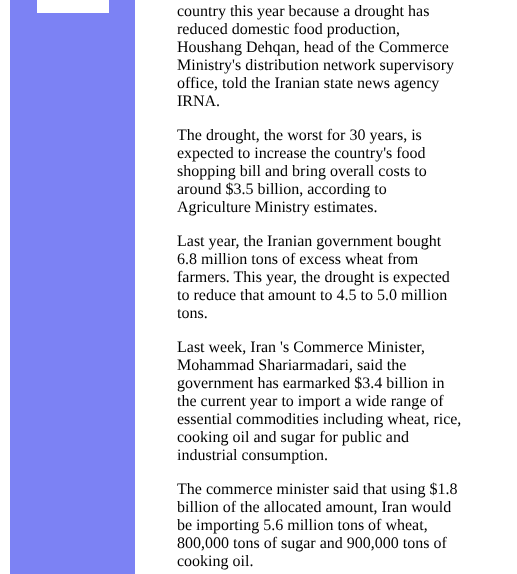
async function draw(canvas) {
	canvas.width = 517;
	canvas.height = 574;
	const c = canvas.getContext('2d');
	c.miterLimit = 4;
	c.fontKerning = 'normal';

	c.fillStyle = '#fff';
	c.fillRect(0, 0, 517, 574);
	c.fillStyle = '#7c82f4';
	c.fillRect(10, 0, 125, 574);
	c.fillStyle = '#fff';
	c.fillRect(37, 0, 72, 13);
	c.font = '16px Liberation Serif';
	c.fillStyle = '#000';
	for (const [text, x, y] of [
		['country this year because a drought has', 177, 16],
		['reduced domestic food production,', 177, 34],
		['Houshang Dehqan, head of the Commerce', 177, 52],
		['Ministry\'s distribution network supervisory', 177, 70],
		['office, told the Iranian state news agency', 177, 88],
		['IRNA.', 177, 106],
		['The drought, the worst for 30 years, is', 177, 140],
		['expected to increase the country\'s food', 177, 158],
		['shopping bill and bring overall costs to', 177, 176],
		['around $3.5 billion, according to', 177, 194],
		['Agriculture Ministry estimates.', 177, 212],
		['Last year, the Iranian government bought', 177, 246],
		['6.8 million tons of excess wheat from', 177, 264],
		['farmers. This year, the drought is expected', 177, 282],
		['to reduce that amount to 4.5 to 5.0 million', 177, 300],
		['tons.', 177, 318],
		['Last week, Iran \'s Commerce Minister,', 177, 352],
		['Mohammad Shariarmadari, said the', 177, 370],
		['government has earmarked $3.4 billion in', 177, 388],
		['the current year to import a wide range of', 177, 406],
		['essential commodities including wheat, rice,', 177, 424],
		['cooking oil and sugar for public and', 177, 442],
		['industrial consumption.', 177, 460],
		['The commerce minister said that using $1.8', 177, 494],
		['billion of the allocated amount, Iran would', 177, 512],
		['be importing 5.6 million tons of wheat,', 177, 530],
		['800,000 tons of sugar and 900,000 tons of', 177, 548],
		['cooking oil.', 177, 566],
	]) {
		c.fillText(text, x, y);
	}
}

draw(document.querySelector('canvas'));
